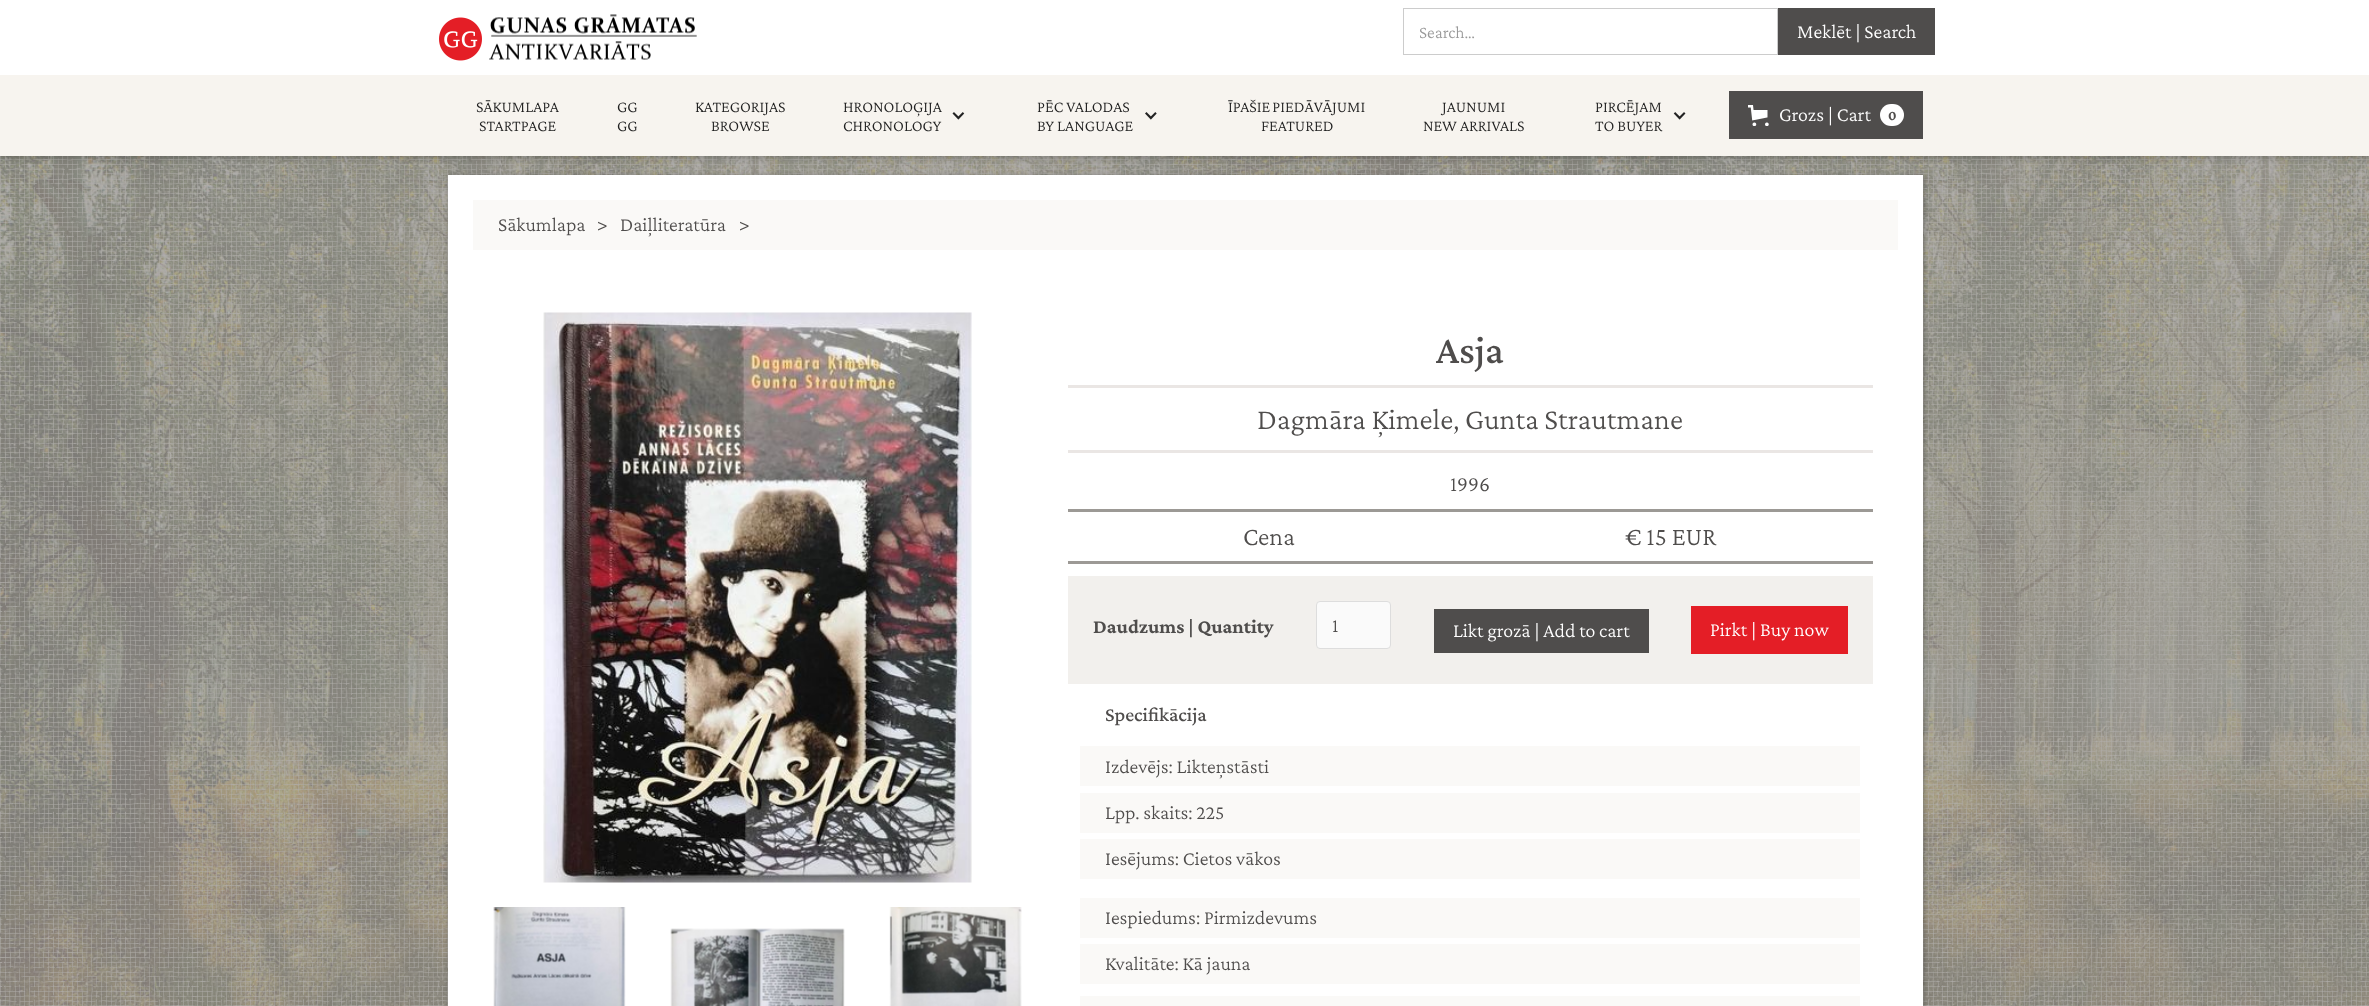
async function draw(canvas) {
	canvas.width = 2369;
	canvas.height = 1006;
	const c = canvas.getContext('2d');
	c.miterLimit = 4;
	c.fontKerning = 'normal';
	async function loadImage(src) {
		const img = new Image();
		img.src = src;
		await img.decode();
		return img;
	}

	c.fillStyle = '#fff';
	c.fillRect(0, 0, 2369, 1006);
	c.drawImage(await loadImage('img7.png'), 0, 156, 2369, 850);
	c.drawImage(await loadImage('img8.png'), 0, 156, 2369, 850);
	c.fillStyle = '#0000004d';
	c.filter = 'blur(4px)';
	c.beginPath();
	c.rect(0, 0, 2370, 156);
	c.fill();
	c.filter = 'none';
	c.fillStyle = '#f7f4ef';
	c.fillRect(0, 75, 2369, 81);
	c.fillStyle = '#fff';
	c.fillRect(0, 0, 2369, 75);
	c.drawImage(await loadImage('img1.png'), 439, 17, 43, 44);
	c.drawImage(await loadImage('img2.png'), 489, 14, 208, 46);
	c.strokeStyle = '#ccc';
	c.strokeRect(1403.5, 8.5, 374, 46);
	c.font = '300 17.5px Crimson Pro';
	c.fillStyle = '#999';
	c.fillText('Search…', 1419, 38);
	c.fillStyle = '#4f4d4c';
	c.fillRect(1778, 8, 157, 47);
	c.font = '300 20px Crimson Pro';
	c.fillStyle = '#fff';
	c.fillText('Meklēt | Search', 1797, 38);
	c.font = '300 16.25px Crimson Pro';
	c.fillStyle = '#222';
	for (const [text, x, y] of [
		['SĀKUMLAPA', 476, 112],
		['STARTPAGE', 479, 131],
		['GG', 617, 112],
		['GG', 617, 131],
		['KATEGORIJAS', 695, 112],
		['BROWSE', 711, 131],
		['HRONOLOĢIJA', 843, 112],
		['CHRONOLOGY', 843, 131],
	]) {
		c.fillText(text, x, y);
	}
	c.drawImage(await loadImage('img3.png'), 952, 112, 13, 8);
	c.fillText('PĒC VALODAS', 1037, 112);
	c.fillText('BY LANGUAGE', 1037, 131);
	c.drawImage(await loadImage('img4.png'), 1145, 112, 12, 8);
	c.wordSpacing = '-1px';
	c.fillText('ĪPAŠIE PIEDĀVĀJUMI', 1228, 112);
	c.wordSpacing = '0px';
	for (const [text, x, y] of [
		['FEATURED', 1261, 131],
		['JAUNUMI', 1442, 112],
		['NEW ARRIVALS', 1423, 131],
		['PIRCĒJAM', 1595, 112],
		['TO BUYER', 1595, 131],
	]) {
		c.fillText(text, x, y);
	}
	c.drawImage(await loadImage('img5.png'), 1673, 112, 13, 8);
	c.fillStyle = '#4f4d4c';
	c.fillRect(1729, 91, 194, 48);
	c.drawImage(await loadImage('img6.png'), 1748, 105, 21, 21);
	c.font = '300 20px Crimson Pro';
	c.fillStyle = '#fff';
	c.fillText('Grozs | Cart', 1779, 121);
	c.beginPath();
	c.roundRect(1880, 104, 24, 22, 11);
	c.fill();
	c.font = 'bold 14px Crimson Pro';
	c.fillStyle = '#4f4d4c';
	c.fillText('0', 1888, 120);
	c.fillStyle = '#0000004d';
	c.filter = 'blur(2px)';
	c.beginPath();
	c.rect(449, 176, 1475, 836);
	c.fill();
	c.filter = 'none';
	c.fillStyle = '#fff';
	c.fillRect(448, 175, 1475, 831);
	c.fillStyle = '#faf9f7';
	c.fillRect(473, 200, 1425, 50);
	c.font = '300 20px Crimson Pro';
	c.fillStyle = '#4f4d4c';
	for (const [text, x, y] of [
		['Sākumlapa', 498, 231],
		['>', 597, 231],
		['Daiļliteratūra', 620, 231],
		['>', 739, 231],
	]) {
		c.fillText(text, x, y);
	}
	c.drawImage(await loadImage('img9.png'), 543, 312, 429, 571);
	c.drawImage(await loadImage('img10.png'), 493, 907, 133, 99);
	c.drawImage(await loadImage('img11.png'), 670, 928, 175, 78);
	c.drawImage(await loadImage('img12.png'), 889, 907, 133, 99);
	c.font = '500 40px Crimson Pro';
	c.fillText('Asja', 1436, 363);
	c.fillStyle = '#eae6e4';
	c.fillRect(1068, 385, 805, 3);
	c.font = '300 30px Crimson Pro';
	c.fillStyle = '#4f4d4c';
	c.fillText('Dagmāra Ķimele, Gunta Strautmane', 1257, 429);
	c.fillStyle = '#eae6e4';
	c.fillRect(1068, 450, 805, 3);
	c.font = '300 22px Crimson Pro';
	c.fillStyle = '#4f4d4c';
	c.fillText('1996', 1450, 491);
	c.fillStyle = '#9c9995';
	c.fillRect(1068, 509, 805, 3);
	c.font = '300 26px Crimson Pro';
	c.fillStyle = '#4f4d4c';
	c.fillText('Cena', 1243, 545);
	c.fillText('€ 15 EUR', 1625, 545);
	c.fillStyle = '#9c9995';
	c.fillRect(1068, 561, 805, 3);
	c.fillStyle = '#f2f0ed';
	c.fillRect(1068, 576, 805, 108);
	c.font = 'bold 20px Crimson Pro';
	c.fillStyle = '#4f4d4c';
	c.fillText('Daudzums | Quantity', 1093, 633);
	c.fillStyle = '#fafafa';
	c.beginPath();
	c.roundRect(1316.5, 601.5, 74, 47, 3.5);
	c.fill();
	c.strokeStyle = '#ddd';
	c.stroke();
	c.font = '300 20px Crimson Pro';
	c.fillStyle = '#4f4d4c';
	c.fillText('1', 1332, 632);
	c.fillRect(1434, 609, 215, 44);
	c.fillStyle = '#fff';
	c.fillText('Likt grozā | Add to cart', 1453, 637);
	c.fillStyle = '#e41e26';
	c.fillRect(1691, 606, 157, 48);
	c.fillStyle = '#fff';
	c.fillText('Pirkt | Buy now', 1710, 636);
	c.font = '500 20px Crimson Pro';
	c.fillStyle = '#4f4d4c';
	c.fillText('Specifikācija', 1105, 721);
	c.fillStyle = '#faf9f7';
	c.fillRect(1080, 746, 780, 40);
	c.font = '300 20px Crimson Pro';
	c.fillStyle = '#4f4d4c';
	c.fillText('Izdevējs: Likteņstāsti', 1105, 773);
	c.fillStyle = '#faf9f7';
	c.fillRect(1080, 793, 780, 40);
	c.fillStyle = '#4f4d4c';
	c.fillText('Lpp. skaits: 225', 1105, 819);
	c.fillStyle = '#faf9f7';
	c.fillRect(1080, 839, 780, 40);
	c.fillStyle = '#4f4d4c';
	c.fillText('Iesējums: Cietos vākos', 1105, 865);
	c.fillStyle = '#faf9f7';
	c.fillRect(1080, 898, 780, 40);
	c.fillStyle = '#4f4d4c';
	c.fillText('Iespiedums: Pirmizdevums', 1105, 924);
	c.fillStyle = '#faf9f7';
	c.fillRect(1080, 944, 780, 40);
	c.fillStyle = '#4f4d4c';
	c.fillText('Kvalitāte: Kā jauna', 1105, 970);
	c.fillStyle = '#faf9f7';
	c.fillRect(1080, 996, 780, 10);
}

draw(document.querySelector('canvas'));
